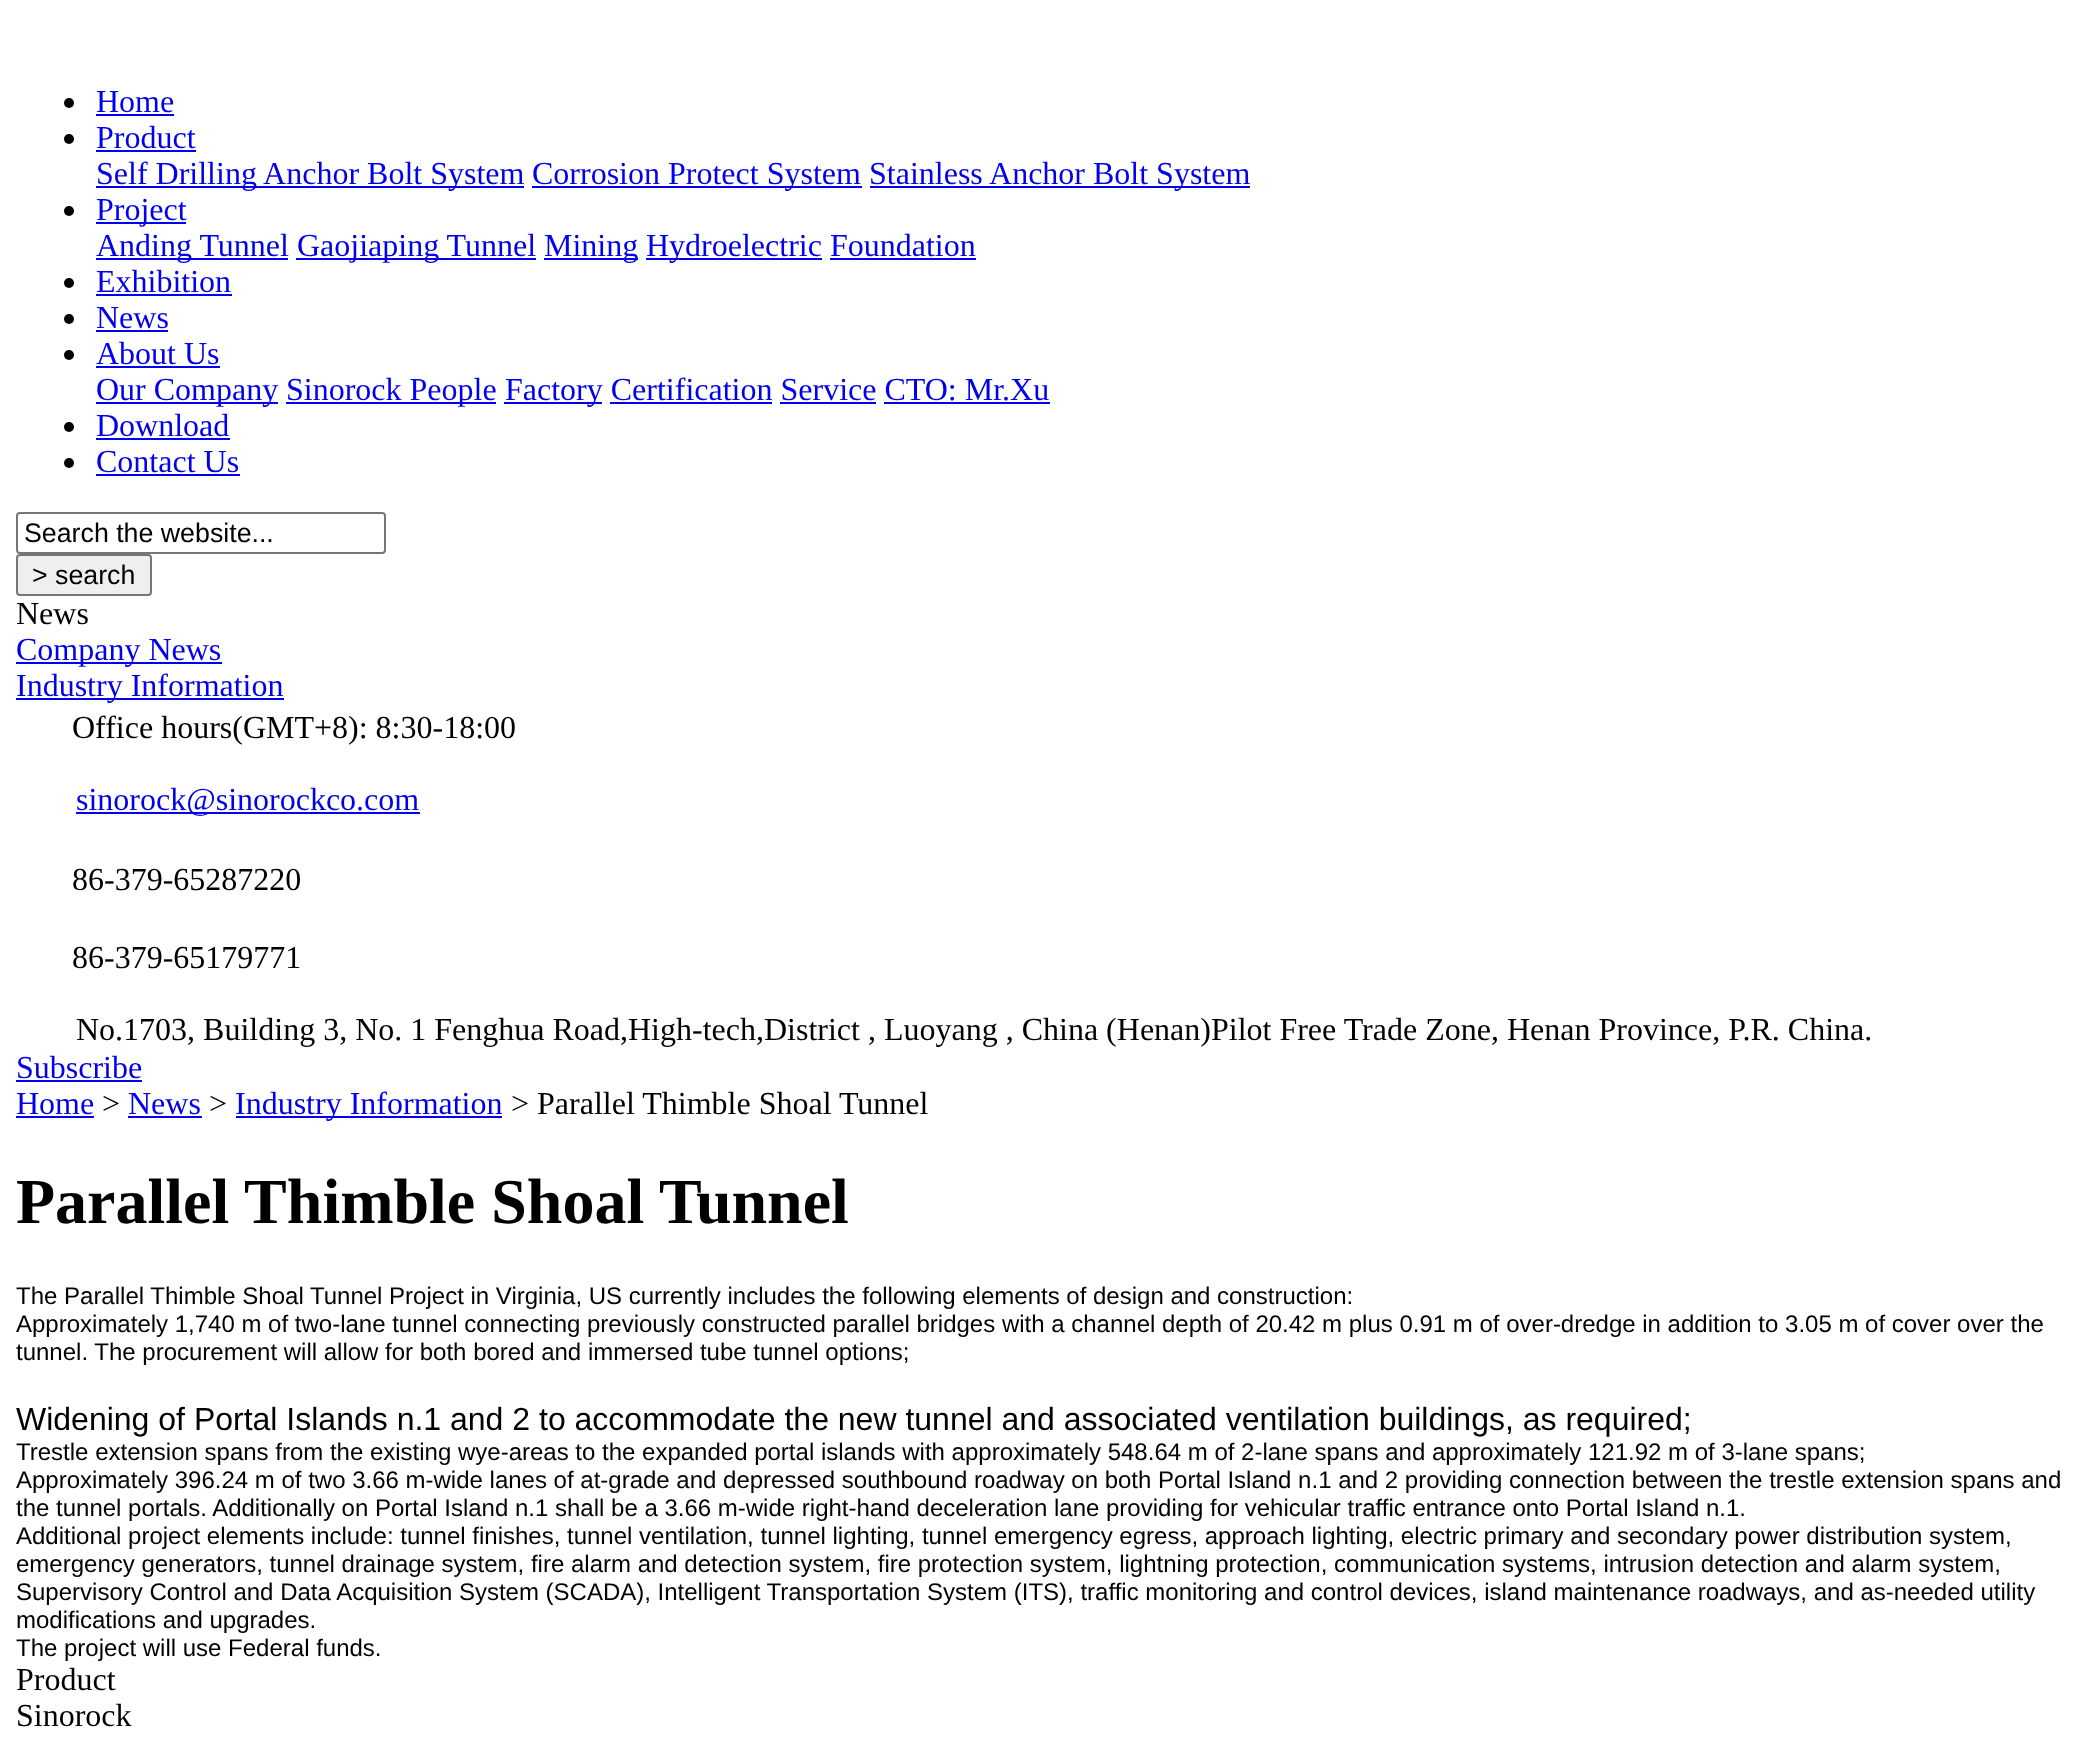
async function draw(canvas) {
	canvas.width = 2085;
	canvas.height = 1753;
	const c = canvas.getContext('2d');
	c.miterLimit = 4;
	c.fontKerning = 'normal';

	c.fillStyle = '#fff';
	c.fillRect(0, 0, 2085, 1753);
	c.fillStyle = '#000';
	c.beginPath();
	c.arc(69, 103, 5, 0, 2 * Math.PI);
	c.fill();
	c.font = '32px Liberation Serif';
	c.fillStyle = '#00e';
	c.fillText('Home', 96, 112);
	c.fillRect(96, 114, 78, 2);
	c.fillStyle = '#000';
	c.beginPath();
	c.arc(69, 139, 5, 0, 2 * Math.PI);
	c.fill();
	c.fillStyle = '#00e';
	c.fillText('Product', 96, 148);
	c.fillRect(96, 150, 100, 2);
	c.fillRect(96, 186, 428, 2);
	c.fillText('Self Drilling Anchor Bolt System', 96, 184);
	c.fillRect(532, 186, 330, 2);
	c.fillText('Corrosion Protect System', 532, 184);
	c.fillRect(870, 186, 380, 2);
	c.fillText('Stainless Anchor Bolt System', 869, 184);
	c.fillStyle = '#000';
	c.beginPath();
	c.arc(69, 211, 5, 0, 2 * Math.PI);
	c.fill();
	c.fillStyle = '#00e';
	c.fillRect(96, 222, 90, 2);
	c.fillText('Project', 96, 220);
	c.fillRect(96, 258, 192, 2);
	c.fillText('Anding Tunnel', 96, 256);
	c.fillRect(296, 258, 240, 2);
	c.fillText('Gaojiaping Tunnel', 297, 256);
	c.fillRect(544, 258, 94, 2);
	c.fillText('Mining', 544, 256);
	c.fillRect(646, 258, 176, 2);
	c.fillText('Hydroelectric Foundation', 646, 256);
	c.fillRect(830, 258, 146, 2);
	c.fillStyle = '#000';
	c.beginPath();
	c.arc(69, 283, 5, 0, 2 * Math.PI);
	c.fill();
	c.fillStyle = '#00e';
	c.fillText('Exhibition', 96, 292);
	c.fillRect(96, 294, 136, 2);
	c.fillStyle = '#000';
	c.beginPath();
	c.arc(69, 319, 5, 0, 2 * Math.PI);
	c.fill();
	c.fillStyle = '#00e';
	c.fillText('News', 96, 328);
	c.fillRect(96, 330, 72, 2);
	c.fillStyle = '#000';
	c.beginPath();
	c.arc(69, 355, 5, 0, 2 * Math.PI);
	c.fill();
	c.fillStyle = '#00e';
	c.fillText('About Us', 96, 364);
	c.fillRect(96, 366, 124, 2);
	c.fillRect(96, 402, 182, 2);
	c.fillText('Our Company', 96, 400);
	c.fillRect(286, 402, 210, 2);
	c.fillText('Sinorock People', 286, 400);
	c.fillRect(504, 402, 98, 2);
	c.fillText('Factory Certification Service CTO: Mr.Xu', 505, 400);
	for (const [x, y, w, h, color] of [
		[610, 402, 162, 2, '#00e'],
		[780, 402, 96, 2, '#00e'],
		[884, 402, 166, 2, '#00e'],
	]) {
		c.fillStyle = color;
		c.fillRect(x, y, w, h);
	}
	c.fillStyle = '#000';
	c.beginPath();
	c.arc(69, 427, 5, 0, 2 * Math.PI);
	c.fill();
	c.fillStyle = '#00e';
	c.fillText('Download', 96, 436);
	c.fillRect(96, 438, 134, 2);
	c.fillStyle = '#000';
	c.beginPath();
	c.arc(69, 463, 5, 0, 2 * Math.PI);
	c.fill();
	c.fillStyle = '#00e';
	c.fillText('Contact Us', 96, 472);
	c.fillRect(96, 474, 144, 2);
	c.beginPath();
	c.roundRect(17, 513, 368, 40, 3);
	c.strokeStyle = '#767676';
	c.lineWidth = 2;
	c.stroke();
	c.font = '26.75px Liberation Sans';
	c.fillStyle = '#000';
	c.fillText('Search the website...', 24, 542);
	c.fillStyle = '#efefef';
	c.beginPath();
	c.roundRect(17, 555, 134, 40, 3);
	c.fill();
	c.stroke();
	c.fillStyle = '#000';
	c.fillText('> search', 32, 584);
	c.font = '32px Liberation Serif';
	c.fillText('News', 16, 624);
	c.fillStyle = '#00e';
	c.fillRect(16, 662, 206, 2);
	c.fillText('Company News', 16, 660);
	c.fillRect(16, 698, 268, 2);
	c.fillText('Industry Information', 16, 696);
	c.fillStyle = '#000';
	c.fillText('Office hours(GMT+8): 8:30-18:00', 72, 738);
	c.fillStyle = '#00e';
	c.fillRect(76, 812, 344, 2);
	c.fillText('sinorock@sinorockco.com', 76, 810);
	c.fillStyle = '#000';
	for (const [text, x, y] of [
		['86-379-65287220', 72, 890],
		['86-379-65179771', 72, 968],
		['No.1703, Building 3, No. 1 Fenghua Road,High-tech,District , Luoyang , China (Henan)Pilot Free Trade Zone, Henan Province, P.R. China.', 76, 1040],
	]) {
		c.fillText(text, x, y);
	}
	c.fillStyle = '#00e';
	c.fillText('Subscribe', 16, 1078);
	c.fillRect(16, 1080, 126, 2);
	c.fillText('Home', 16, 1114);
	c.fillRect(16, 1116, 78, 2);
	c.fillStyle = '#000';
	c.fillText('>', 102, 1114);
	c.fillStyle = '#00e';
	c.fillText('News', 128, 1114);
	c.fillRect(128, 1116, 74, 2);
	c.fillStyle = '#000';
	c.fillText('>', 209, 1114);
	c.fillStyle = '#00e';
	c.fillRect(236, 1116, 266, 2);
	c.fillText('Industry Information', 235, 1114);
	c.fillStyle = '#000';
	c.fillText('> Parallel Thimble Shoal Tunnel', 511, 1114);
	c.font = 'bold 64px Liberation Serif';
	c.fillText('Parallel Thimble Shoal Tunnel', 16, 1223);
	c.font = '24px Liberation Sans';
	for (const [text, x, y] of [
		['The Parallel Thimble Shoal Tunnel Project in Virginia, US currently includes the following elements of design and construction:', 16, 1304],
		['Approximately 1,740 m of two-lane tunnel connecting previously constructed parallel bridges with a channel depth of 20.42 m plus 0.91 m of over-dredge in addition to 3.05 m of cover over the', 16, 1332],
		['tunnel. The procurement will allow for both bored and immersed tube tunnel options;', 16, 1360],
	]) {
		c.fillText(text, x, y);
	}
	c.font = '32px Liberation Sans';
	c.fillText('Widening of Portal Islands n.1 and 2 to accommodate the new tunnel and associated ventilation buildings, as required;', 16, 1430);
	c.font = '24px Liberation Sans';
	for (const [text, x, y] of [
		['Trestle extension spans from the existing wye-areas to the expanded portal islands with approximately 548.64 m of 2-lane spans and approximately 121.92 m of 3-lane spans;', 16, 1460],
		['Approximately 396.24 m of two 3.66 m-wide lanes of at-grade and depressed southbound roadway on both Portal Island n.1 and 2 providing connection between the trestle extension spans and', 16, 1488],
		['the tunnel portals. Additionally on Portal Island n.1 shall be a 3.66 m-wide right-hand deceleration lane providing for vehicular traffic entrance onto Portal Island n.1.', 16, 1516],
		['Additional project elements include: tunnel finishes, tunnel ventilation, tunnel lighting, tunnel emergency egress, approach lighting, electric primary and secondary power distribution system,', 16, 1544],
		['emergency generators, tunnel drainage system, fire alarm and detection system, fire protection system, lightning protection, communication systems, intrusion detection and alarm system,', 16, 1572],
		['Supervisory Control and Data Acquisition System (SCADA), Intelligent Transportation System (ITS), traffic monitoring and control devices, island maintenance roadways, and as-needed utility', 16, 1600],
		['modifications and upgrades.', 16, 1628],
		['The project will use Federal funds.', 16, 1656],
	]) {
		c.fillText(text, x, y);
	}
	c.font = '32px Liberation Serif';
	c.fillText('Product', 16, 1690);
	c.fillText('Sinorock', 16, 1726);
}

draw(document.querySelector('canvas'));
